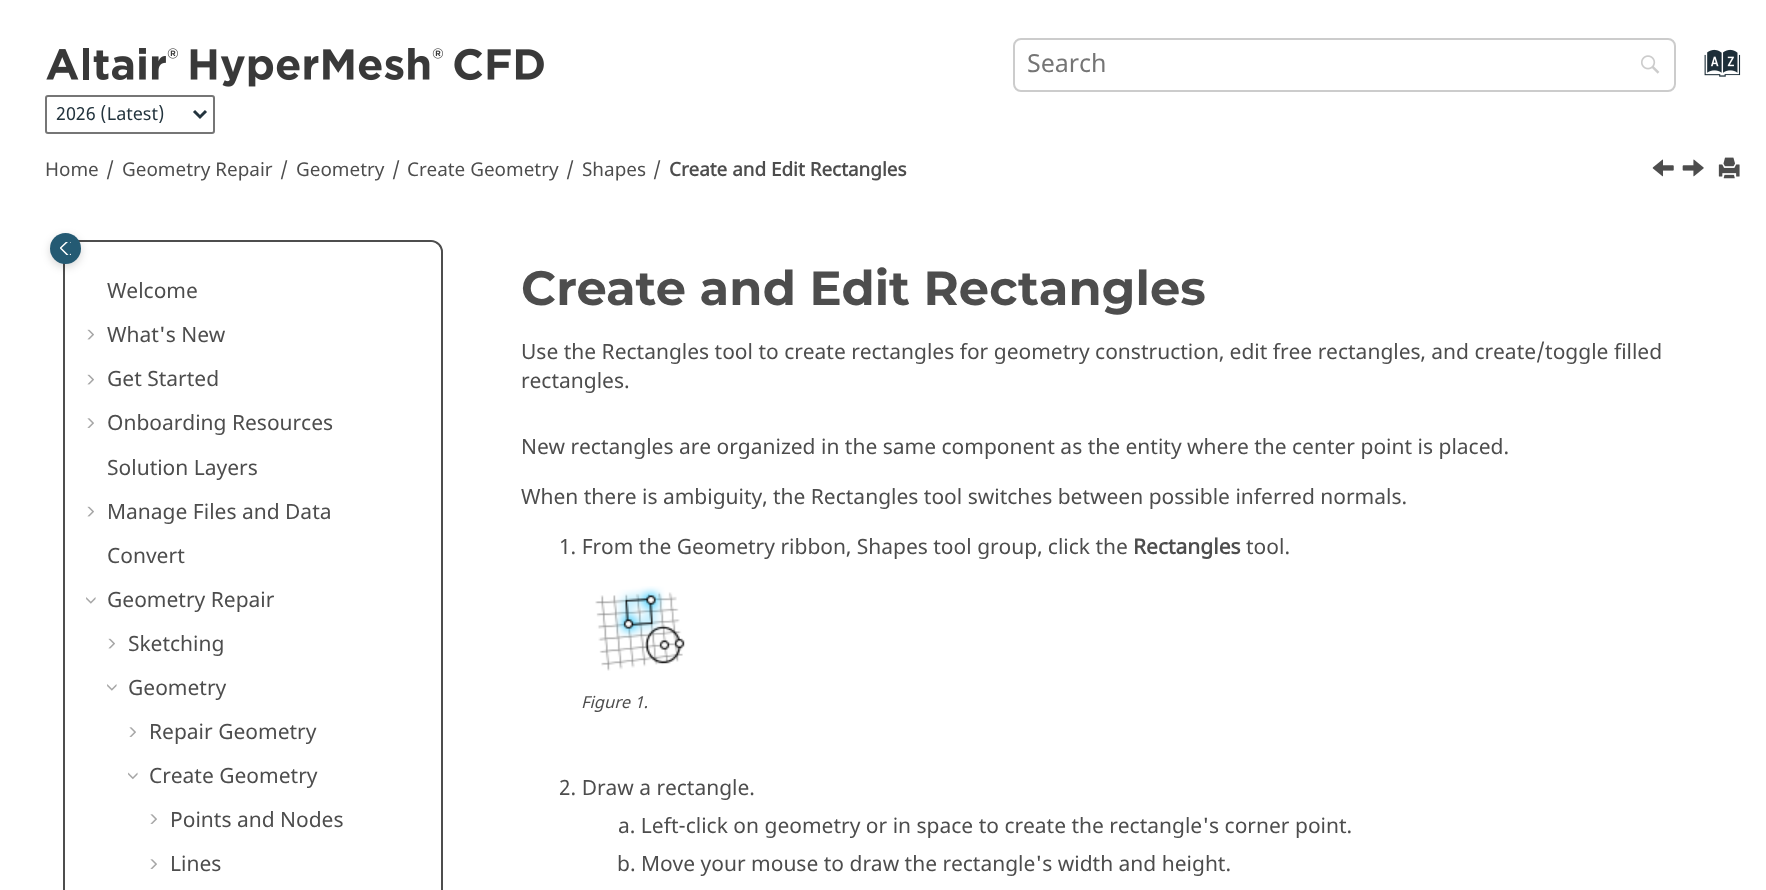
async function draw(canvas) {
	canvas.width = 1766;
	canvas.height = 890;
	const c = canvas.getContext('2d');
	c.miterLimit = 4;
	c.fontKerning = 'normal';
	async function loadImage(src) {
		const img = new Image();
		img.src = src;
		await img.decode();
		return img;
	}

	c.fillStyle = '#fff';
	c.fillRect(0, 0, 1766, 890);
	c.beginPath();
	c.roundRect(1014, 39, 661, 52, 7);
	c.strokeStyle = '#ccc';
	c.lineWidth = 2;
	c.stroke();
	c.font = '25px Noto Sans';
	c.fillStyle = '#757575';
	c.fillText('Search', 1027, 72);
	c.drawImage(await loadImage('img1.png'), 1641, 55, 19, 19);
	c.drawImage(await loadImage('img2.png'), 1704, 49, 37, 28);
	c.drawImage(await loadImage('img3.png'), 46, 48, 498, 39);
	c.beginPath();
	c.roundRect(46, 96, 168, 37, 2);
	c.strokeStyle = '#767676';
	c.stroke();
	c.beginPath();
	c.moveTo(194, 111);
	c.lineTo(200, 117);
	c.lineTo(206, 111);
	c.strokeStyle = '#23343e';
	c.lineWidth = 3;
	c.stroke();
	c.font = '18px Noto Sans';
	c.fillStyle = '#23343e';
	c.fillText('2026 (Latest)', 56, 120);
	c.font = '18.9px Noto Sans';
	c.fillStyle = '#4d4d4d';
	for (const [text, x, y] of [
		['Home', 45, 176],
		['/', 106, 176],
		['Geometry Repair', 122, 176],
		['/', 280, 176],
		['Geometry', 296, 176],
		['/', 392, 176],
		['Create Geometry', 407, 176],
		['/', 566, 176],
		['Shapes', 582, 176],
		['/', 653, 176],
	]) {
		c.fillText(text, x, y);
	}
	c.font = 'bold 18.9px Noto Sans';
	c.fillText('Create and Edit Rectangles', 669, 176);
	c.drawImage(await loadImage('img4.png'), 1652, 159, 22, 18);
	c.drawImage(await loadImage('img5.png'), 1682, 159, 22, 18);
	c.drawImage(await loadImage('img6.png'), 1718, 157, 22, 22);
	c.beginPath();
	c.roundRect(64, 241, 378, 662, 11);
	c.strokeStyle = '#4d4d4d';
	c.lineWidth = 2;
	c.stroke();
	c.fillStyle = '#fff';
	c.beginPath();
	c.moveTo(76, 242);
	c.lineTo(430, 242);
	c.bezierCurveTo(436, 242, 441, 247, 441, 253);
	c.lineTo(441, 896);
	c.bezierCurveTo(441, 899, 439, 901, 436, 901);
	c.lineTo(70, 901);
	c.bezierCurveTo(67, 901, 65, 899, 65, 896);
	c.lineTo(65, 253);
	c.bezierCurveTo(65, 247, 70, 242, 76, 242);
	c.closePath();
	c.fill();
	c.font = '21px Noto Sans';
	c.fillStyle = '#4d4d4d';
	c.fillText('Welcome', 107, 298);
	c.drawImage(await loadImage('img7.png'), 87, 329, 7, 11);
	c.fillText('What\'s New', 107, 342);
	c.drawImage(await loadImage('img7.png'), 87, 374, 7, 11);
	c.fillText('Get Started', 107, 386);
	c.drawImage(await loadImage('img8.png'), 87, 418, 7, 10);
	c.fillText('Onboarding Resources', 107, 430);
	c.fillText('Solution Layers', 107, 475);
	c.drawImage(await loadImage('img7.png'), 87, 506, 7, 11);
	c.fillText('Manage Files and Data', 107, 519);
	c.fillText('Convert', 107, 563);
	c.drawImage(await loadImage('img9.png'), 86, 597, 10, 7);
	c.fillText('Geometry Repair', 107, 607);
	c.drawImage(await loadImage('img7.png'), 108, 638, 7, 11);
	c.fillText('Sketching', 128, 651);
	c.drawImage(await loadImage('img9.png'), 107, 684, 10, 7);
	c.fillText('Geometry', 128, 695);
	c.drawImage(await loadImage('img8.png'), 129, 727, 7, 10);
	c.fillText('Repair Geometry', 149, 739);
	c.drawImage(await loadImage('img10.png'), 128, 772, 10, 8);
	c.fillText('Create Geometry', 149, 783);
	c.drawImage(await loadImage('img8.png'), 150, 814, 7, 10);
	c.fillText('Points and Nodes', 170, 827);
	c.drawImage(await loadImage('img8.png'), 150, 859, 7, 10);
	c.fillText('Lines', 170, 871);
	c.fillStyle = '#00000029';
	c.filter = 'blur(4px)';
	c.beginPath();
	c.roundRect(50, 236, 31, 31, 15.5);
	c.fill();
	c.filter = 'none';
	c.fillStyle = '#245a73';
	c.beginPath();
	c.arc(65.5, 248.5, 15.5, 0, 2 * Math.PI);
	c.fill();
	c.save();
	c.beginPath();
	c.rect(60, 242, 11, 13);
	c.clip();
	c.beginPath();
	c.moveTo(69, 240);
	c.lineTo(77.5, 248);
	c.lineTo(69, 256.5);
	c.lineTo(60.5, 248);
	c.closePath();
	c.strokeStyle = '#fff';
	c.lineWidth = 1.5;
	c.stroke();
	c.restore();
	c.font = 'bold 48px Montserrat';
	c.fillStyle = '#4d4d4d';
	c.fillText('Create and Edit Rectangles', 521, 305);
	c.font = '21px Noto Sans';
	for (const [text, x, y] of [
		['Use the Rectangles tool to create rectangles for geometry construction, edit free rectangles, and create/toggle filled', 521, 359],
		['rectangles.', 521, 388],
		['New rectangles are organized in the same component as the entity where the center point is placed.', 521, 454],
		['When there is ambiguity, the Rectangles tool switches between possible inferred normals.', 521, 504],
		['1. From the Geometry ribbon, Shapes tool group, click the', 559, 554],
	]) {
		c.fillText(text, x, y);
	}
	c.font = 'bold 21px Noto Sans';
	c.fillText('Rectangles', 1133, 554);
	c.font = '21px Noto Sans';
	c.fillText('tool.', 1246, 554);
	c.drawImage(await loadImage('img11.png'), 595, 586, 90, 85);
	c.font = 'italic 16.5px Noto Sans';
	c.fillText('Figure 1.', 581, 708);
	c.font = '21px Noto Sans';
	for (const [text, x, y] of [
		['2. Draw a rectangle.', 559, 795],
		['a. Left-click on geometry or in space to create the rectangle\'s corner point.', 618, 833],
		['b. Move your mouse to draw the rectangle\'s width and height.', 617, 871],
	]) {
		c.fillText(text, x, y);
	}
}

draw(document.querySelector('canvas'));
